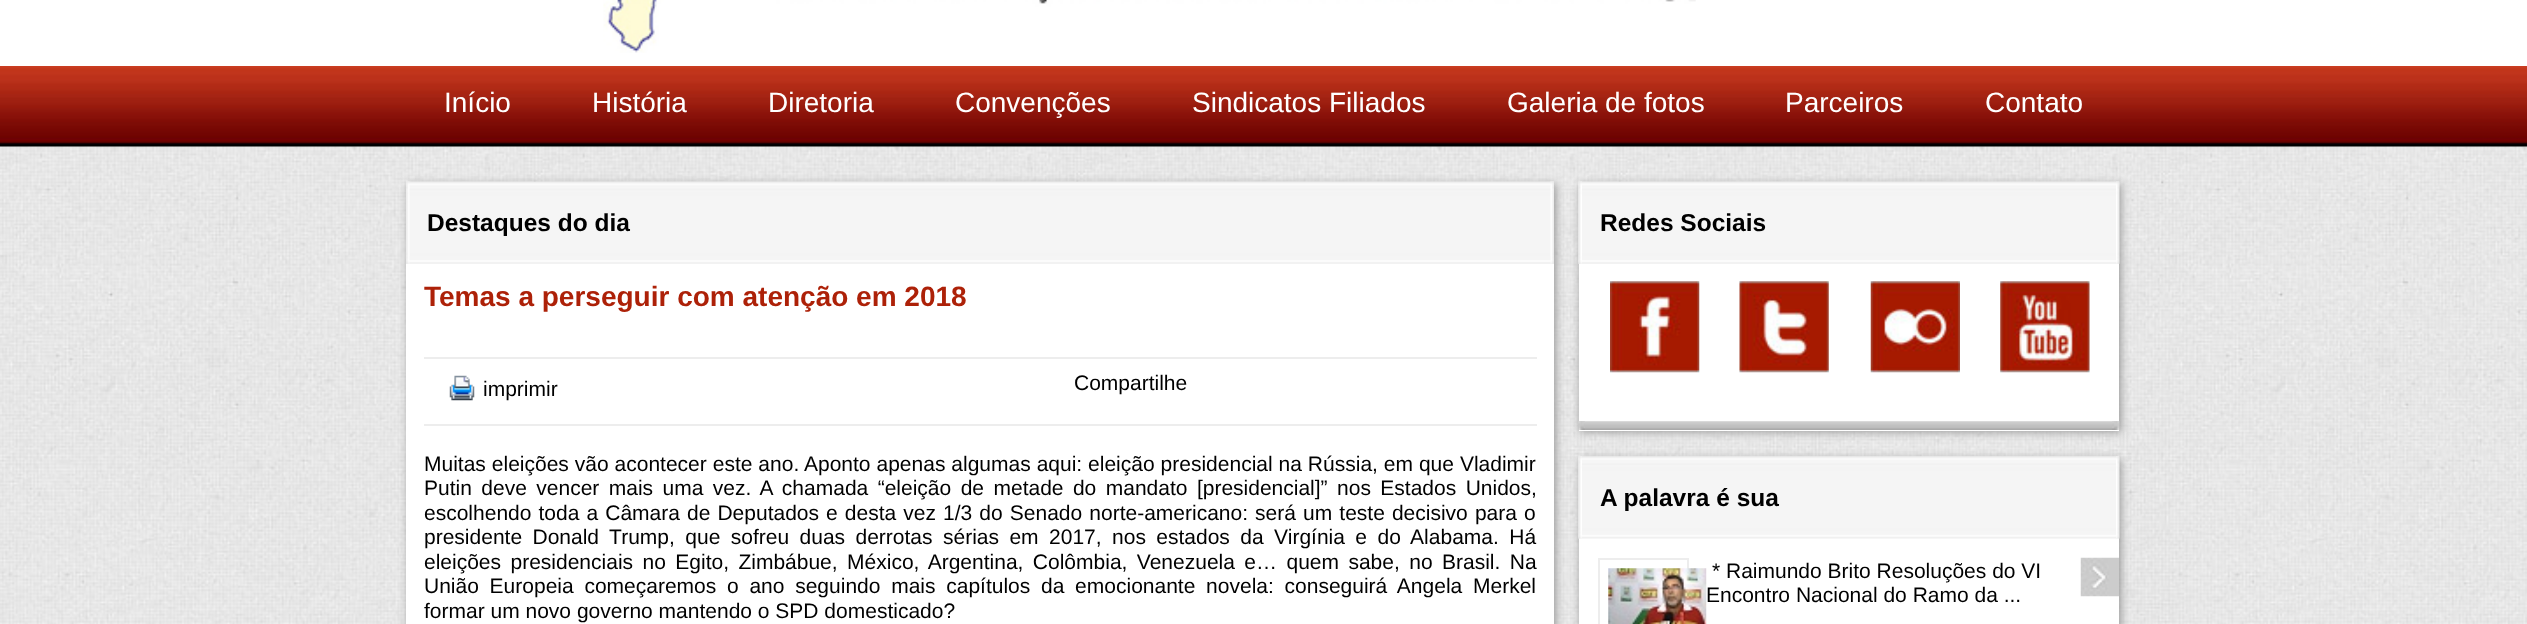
async function draw(canvas) {
	canvas.width = 2527;
	canvas.height = 624;
	const c = canvas.getContext('2d');
	c.miterLimit = 4;
	c.fontKerning = 'normal';
	async function loadImage(src) {
		const img = new Image();
		img.src = src;
		await img.decode();
		return img;
	}

	c.fillStyle = '#fff';
	c.fillRect(0, 0, 2527, 624);
	c.drawImage(await loadImage('img1.png'), 0, 146, 2527, 478);
	c.drawImage(await loadImage('img2.png'), 603, 0, 1093, 53);
	c.drawImage(await loadImage('img3.png'), 0, 66, 2527, 81);
	c.font = '28px Liberation Sans';
	for (const [text, x, y] of [
		['Início', 444, 112],
		['História', 592, 112],
		['Diretoria', 768, 112],
		['Convenções', 955, 112],
		['Sindicatos Filiados', 1192, 112],
		['Galeria de fotos', 1507, 112],
		['Parceiros', 1785, 112],
		['Contato', 1985, 112],
	]) {
		c.fillText(text, x, y);
	}
	c.fillStyle = '#999';
	c.filter = 'blur(4.5px)';
	c.beginPath();
	c.rect(408, 184, 1148, 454);
	c.fill();
	c.filter = 'none';
	c.fillStyle = '#fff';
	c.fillRect(406, 263, 1148, 361);
	c.drawImage(await loadImage('img4.png'), 406, 181, 1148, 83);
	c.drawImage(await loadImage('img5.png'), 406, 181, 4, 83);
	c.font = 'bold 24.5px Liberation Sans';
	c.fillStyle = '#000';
	c.fillText('Destaques do dia', 427, 231);
	c.drawImage(await loadImage('img6.png'), 1550, 181, 4, 83);
	c.font = 'bold 28px Liberation Sans';
	c.fillStyle = '#ad2108';
	c.fillText('Temas a perseguir com atenção em 2018', 424, 306);
	c.fillStyle = '#ededed';
	c.fillRect(424, 357, 1113, 2);
	c.fillRect(424, 424, 1113, 2);
	c.drawImage(await loadImage('img7.png'), 449, 375, 26, 26);
	c.font = '21px Liberation Sans';
	c.fillStyle = '#000';
	c.fillText('imprimir', 483, 396);
	c.fillText('Compartilhe', 1074, 390);
	c.wordSpacing = '0.1px';
	c.fillText('Muitas eleições vão acontecer este ano. Aponto apenas algumas aqui: eleição presidencial na Rússia, em que Vladimir', 424, 471);
	c.wordSpacing = '3.6px';
	c.fillText('Putin deve vencer mais uma vez. A chamada “eleição de metade do mandato [presidencial]” nos Estados Unidos,', 424, 495);
	c.wordSpacing = '1.25px';
	c.fillText('escolhendo toda a Câmara de Deputados e desta vez 1/3 do Senado norte-americano: será um teste decisivo para o', 424, 520);
	c.wordSpacing = '4.6px';
	c.fillText('presidente Donald Trump, que sofreu duas derrotas sérias em 2017, nos estados da Virgínia e do Alabama. Há', 424, 544);
	c.wordSpacing = '3.6px';
	c.fillText('eleições presidenciais no Egito, Zimbábue, México, Argentina, Colômbia, Venezuela e… quem sabe, no Brasil. Na', 424, 569);
	c.wordSpacing = '4.9px';
	c.fillText('União Europeia começaremos o ano seguindo mais capítulos da emocionante novela: conseguirá Angela Merkel', 424, 593);
	c.wordSpacing = '0px';
	c.fillText('formar um novo governo mantendo o SPD domesticado?', 424, 618);
	c.fillStyle = '#999';
	c.filter = 'blur(4.5px)';
	c.beginPath();
	c.rect(1580, 184, 541, 248);
	c.fill();
	c.filter = 'none';
	c.fillStyle = '#fff';
	c.fillRect(1579, 263, 540, 168);
	c.drawImage(await loadImage('img8.png'), 1578, 181, 542, 83);
	c.drawImage(await loadImage('img9.png'), 1578, 181, 4, 83);
	c.font = 'bold 24.5px Liberation Sans';
	c.fillStyle = '#000';
	c.fillText('Redes Sociais', 1600, 231);
	c.drawImage(await loadImage('img10.png'), 2116, 181, 4, 83);
	c.drawImage(await loadImage('img11.png'), 1610, 281, 90, 92);
	c.drawImage(await loadImage('img12.png'), 1739, 281, 90, 92);
	c.drawImage(await loadImage('img13.png'), 1870, 281, 90, 92);
	c.drawImage(await loadImage('img14.png'), 2000, 281, 90, 92);
	c.drawImage(await loadImage('img15.png'), 1578, 421, 542, 9);
	c.drawImage(await loadImage('img16.png'), 1578, 421, 7, 9);
	c.drawImage(await loadImage('img17.png'), 2112, 421, 8, 9);
	c.fillStyle = '#999';
	c.filter = 'blur(4.5px)';
	c.beginPath();
	c.rect(1580, 459, 541, 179);
	c.fill();
	c.filter = 'none';
	c.fillStyle = '#fff';
	c.fillRect(1579, 538, 540, 86);
	c.drawImage(await loadImage('img18.png'), 1578, 456, 542, 83);
	c.drawImage(await loadImage('img19.png'), 1578, 456, 4, 83);
	c.fillStyle = '#000';
	c.fillText('A palavra é sua', 1600, 506);
	c.drawImage(await loadImage('img20.png'), 2116, 456, 4, 83);
	c.strokeStyle = '#ededed';
	c.lineWidth = 2;
	c.strokeRect(1599, 559, 89, 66);
	c.drawImage(await loadImage('img21.png'), 1608, 568, 99, 56);
	c.font = '21px Liberation Sans';
	c.fillText('* Raimundo Brito Resoluções do VI', 1712, 578);
	c.fillText('Encontro Nacional do Ramo da ...', 1706, 602);
	c.drawImage(await loadImage('img22.png'), 2080, 557, 39, 40);
}

draw(document.querySelector('canvas'));
